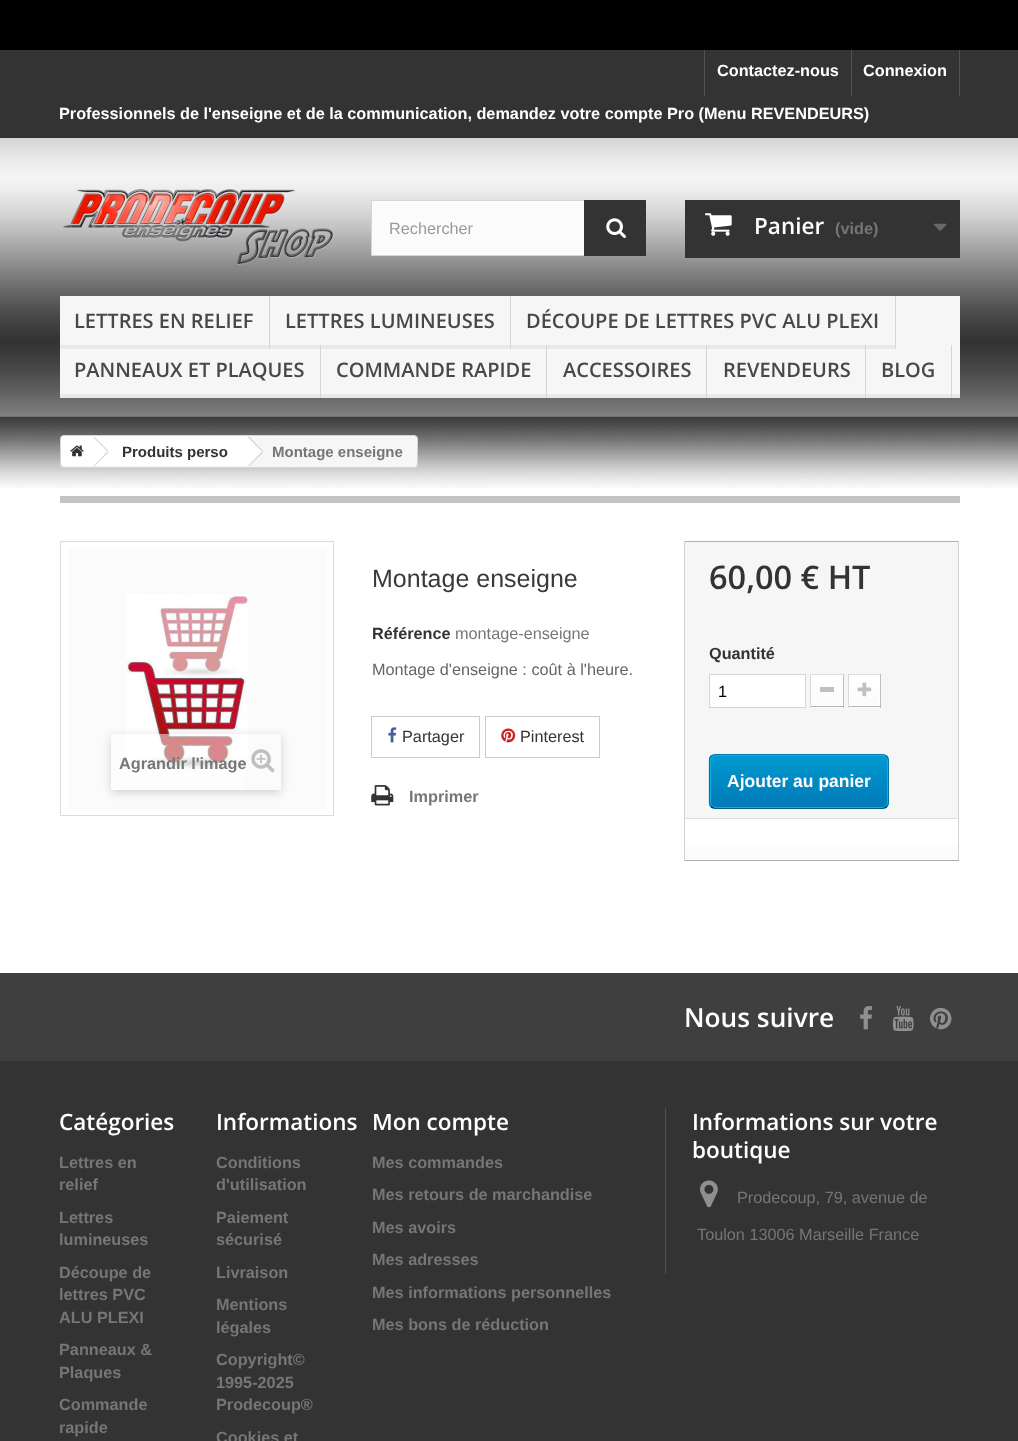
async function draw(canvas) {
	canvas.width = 1018;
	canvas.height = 1441;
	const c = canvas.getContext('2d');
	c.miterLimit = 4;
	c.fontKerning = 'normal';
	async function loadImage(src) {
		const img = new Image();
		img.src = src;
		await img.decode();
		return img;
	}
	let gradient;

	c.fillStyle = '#fff';
	c.fillRect(0, 0, 1018, 1441);
	c.drawImage(await loadImage('img6.png'), 0, 416, 1018, 72);
	c.drawImage(await loadImage('img1.png'), 0, 138, 1018, 279);
	for (const [x, y, w, h, color] of [
		[0, 0, 1018, 50, '#000'],
		[0, 50, 1018, 88, '#333'],
		[704, 50, 1, 46, '#515151'],
	]) {
		c.fillStyle = color;
		c.fillRect(x, y, w, h);
	}
	c.font = 'bold 16.25px Liberation Sans';
	c.fillStyle = '#fff';
	c.fillText('Contactez-nous', 717, 76);
	c.fillStyle = '#515151';
	c.fillRect(959, 50, 1, 46);
	c.fillRect(851, 50, 1, 46);
	c.fillStyle = '#fff';
	c.fillText('Connexion', 863, 76);
	c.fillText('Professionnels de l\'enseigne et de la communication, demandez votre compte Pro (Menu REVENDEURS)', 59, 119);
	c.drawImage(await loadImage('img2.png'), 63, 189, 271, 76);
	c.fillStyle = '#fbfbfb';
	c.fillRect(372, 201, 212, 54);
	c.strokeStyle = '#d6d4d4';
	c.strokeRect(371.5, 200.5, 274, 55);
	c.font = '16.25px Liberation Sans';
	c.fillStyle = '#999';
	c.fillText('Rechercher', 389, 234);
	c.fillStyle = '#333';
	c.fillRect(584, 200, 62, 56);
	c.drawImage(await loadImage('img3.png'), 606, 218, 20, 20);
	c.fillRect(685, 200, 275, 58);
	c.drawImage(await loadImage('img4.png'), 705, 213, 27, 23);
	c.font = '600 22.5px Open Sans';
	c.fillStyle = '#fff';
	c.fillText('Panier', 754, 234);
	c.font = 'bold 16.25px Liberation Sans';
	c.fillStyle = '#777676';
	c.fillText('(vide)', 835, 234);
	c.drawImage(await loadImage('img5.png'), 933, 223, 14, 8);
	for (const [x, y, w, h, color] of [
		[60, 296, 900, 98, '#f6f6f6'],
		[60, 394, 900, 4, '#e9e9e9'],
		[269, 296, 1, 53, '#d6d4d4'],
		[60, 345, 209, 4, '#e9e9e9'],
	]) {
		c.fillStyle = color;
		c.fillRect(x, y, w, h);
	}
	c.font = '600 20px Open Sans';
	c.fillStyle = '#484848';
	c.fillText('LETTRES EN RELIEF', 74, 328);
	c.fillStyle = '#d6d4d4';
	c.fillRect(510, 296, 1, 53);
	c.fillStyle = '#e9e9e9';
	c.fillRect(270, 345, 240, 4);
	c.fillStyle = '#484848';
	c.fillText('LETTRES LUMINEUSES', 285, 328);
	c.fillStyle = '#d6d4d4';
	c.fillRect(895, 296, 1, 53);
	c.fillStyle = '#e9e9e9';
	c.fillRect(511, 345, 384, 4);
	c.fillStyle = '#484848';
	c.fillText('DÉCOUPE DE LETTRES PVC ALU PLEXI', 526, 328);
	c.fillStyle = '#d6d4d4';
	c.fillRect(320, 345, 1, 53);
	c.fillStyle = '#484848';
	c.fillText('PANNEAUX ET PLAQUES', 74, 377);
	c.fillStyle = '#d6d4d4';
	c.fillRect(546, 345, 1, 53);
	c.fillStyle = '#484848';
	c.fillText('COMMANDE RAPIDE', 336, 377);
	c.fillStyle = '#d6d4d4';
	c.fillRect(706, 345, 1, 53);
	c.fillStyle = '#484848';
	c.fillText('ACCESSOIRES', 563, 377);
	c.fillStyle = '#d6d4d4';
	c.fillRect(865, 345, 1, 53);
	c.fillStyle = '#484848';
	c.fillText('REVENDEURS', 723, 377);
	c.fillStyle = '#d6d4d4';
	c.fillRect(951, 345, 1, 53);
	c.fillStyle = '#484848';
	c.fillText('BLOG', 881, 377);
	c.fillStyle = '#f6f6f6';
	c.beginPath();
	c.roundRect(60.5, 435.5, 357, 32, 3.5);
	c.fill();
	c.stroke();
	c.fillStyle = '#fff';
	c.beginPath();
	c.roundRect(61, 436, 42, 30, [2.5, 0, 0, 2.5]);
	c.fill();
	c.drawImage(await loadImage('img7.png'), 70, 445, 14, 12);
	c.beginPath();
	c.moveTo(105, 437.5);
	c.lineTo(117.5, 450);
	c.bezierCurveTo(118.5, 451, 118.5, 452.5, 117.5, 453.5);
	c.lineTo(105, 466);
	c.lineTo(101.5, 466);
	c.lineTo(89, 453.5);
	c.bezierCurveTo(88, 452.5, 88, 451, 89, 450);
	c.lineTo(101.5, 437.5);
	c.bezierCurveTo(102.5, 436.5, 104, 436.5, 105, 437.5);
	c.closePath();
	c.fill();
	c.fillRect(103, 436, 143, 30);
	c.fillStyle = '#d6d4d4';
	c.beginPath();
	c.moveTo(94, 436.5);
	c.lineTo(108.5, 451);
	c.lineTo(107.5, 451.5);
	c.lineTo(93.5, 437.5);
	c.closePath();
	c.fill();
	c.beginPath();
	c.moveTo(107.5, 451.5);
	c.lineTo(108.5, 452.5);
	c.lineTo(94, 466.5);
	c.lineTo(93.5, 466);
	c.closePath();
	c.fill();
	c.font = 'bold 15px Liberation Sans';
	c.fillStyle = '#333';
	c.fillText('Produits perso', 122, 457);
	c.fillStyle = '#fff';
	c.beginPath();
	c.moveTo(249.5, 437.5);
	c.lineTo(262, 450);
	c.bezierCurveTo(263, 451, 263, 452.5, 262, 453.5);
	c.lineTo(249.5, 466);
	c.lineTo(246, 466);
	c.lineTo(234, 453.5);
	c.bezierCurveTo(233, 452.5, 233, 451, 234, 450);
	c.lineTo(246, 437.5);
	c.bezierCurveTo(247, 436.5, 248.5, 436.5, 249.5, 437.5);
	c.closePath();
	c.fill();
	c.fillStyle = '#d6d4d4';
	c.beginPath();
	c.moveTo(249, 436.5);
	c.lineTo(263, 451);
	c.lineTo(262, 451.5);
	c.lineTo(248, 437.5);
	c.closePath();
	c.fill();
	c.beginPath();
	c.moveTo(262, 451.5);
	c.lineTo(263, 452.5);
	c.lineTo(249.5, 466);
	c.lineTo(248, 466);
	c.closePath();
	c.fill();
	c.fillStyle = '#777676';
	c.fillText('Montage enseigne', 272, 457);
	c.fillStyle = '#c4c4c4';
	c.fillRect(60, 496, 900, 7);
	c.strokeStyle = '#dbdbdb';
	c.strokeRect(60.5, 541.5, 273, 274);
	c.fillStyle = '#fbfbfb';
	c.fillRect(68, 549, 258, 260);
	c.drawImage(await loadImage('img8.png'), 126, 594, 122, 175);
	c.save();
	c.beginPath();
	c.moveTo(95, 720);
	c.lineTo(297, 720);
	c.lineTo(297, 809);
	c.lineTo(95, 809);
	c.closePath();
	c.moveTo(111, 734);
	c.lineTo(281, 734);
	c.lineTo(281, 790);
	c.lineTo(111, 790);
	c.closePath();
	c.clip('evenodd');
	c.fillStyle = '#00000029';
	c.filter = 'blur(5px)';
	c.beginPath();
	c.rect(111, 736, 170, 57);
	c.fill();
	c.filter = 'none';
	c.restore();
	c.fillStyle = '#ffffff80';
	c.fillRect(111, 734, 134, 56);
	c.font = 'bold 16.25px Liberation Sans';
	c.fillStyle = '#777676';
	c.fillText('Agrandir l\'image', 119, 769);
	c.drawImage(await loadImage('img9.png'), 251, 749, 24, 24);
	c.font = '25px Liberation Sans';
	c.fillStyle = '#3a3939';
	c.fillText('Montage enseigne', 372, 587);
	c.font = 'bold 16.25px Liberation Sans';
	c.fillStyle = '#333';
	c.fillText('Référence', 372, 639);
	c.font = '16.25px Liberation Sans';
	c.fillStyle = '#777676';
	c.fillText('montage-enseigne', 455, 639);
	c.fillStyle = '#666';
	c.fillText('Montage d\'enseigne : coût à l\'heure.', 372, 675);
	c.strokeStyle = '#ccc';
	c.strokeRect(371.5, 716.5, 108, 41);
	c.drawImage(await loadImage('img10.png'), 388, 727, 9, 16);
	c.fillStyle = '#333';
	c.fillText('Partager', 402, 742);
	c.strokeRect(485.5, 716.5, 114, 41);
	c.drawImage(await loadImage('img11.png'), 501, 728, 15, 15);
	c.fillText('Pinterest', 520, 742);
	c.drawImage(await loadImage('img12.png'), 371, 785, 23, 21);
	c.font = 'bold 16.25px Liberation Sans';
	c.fillStyle = '#777676';
	c.fillText('Imprimer', 409, 802);
	for (const [x, y, w, h, color] of [
		[685, 542, 273, 276, '#f6f6f6'],
		[684, 541, 275, 1, '#b0afaf'],
		[958, 541, 1, 320, '#d2d0d0'],
		[684, 860, 275, 1, '#b0afaf'],
		[684, 541, 1, 320, '#d2d0d0'],
	]) {
		c.fillStyle = color;
		c.fillRect(x, y, w, h);
	}
	c.font = '600 32.5px Open Sans';
	c.fillStyle = '#333';
	c.fillText('60,00 € HT', 709, 589);
	c.font = 'bold 16.25px Liberation Sans';
	c.fillText('Quantité', 709, 659);
	c.fillStyle = '#fff';
	c.beginPath();
	c.rect(709.5, 674.5, 96, 33);
	c.fill();
	c.strokeStyle = '#d6d4d4';
	c.stroke();
	c.font = '16.25px Liberation Sans';
	c.fillStyle = '#000';
	c.fillText('1', 718, 697);
	for (const [x, y, w, h, color] of [
		[811, 707, 32, 1, '#fff'],
		[810, 674, 34, 1, '#dedcdc'],
		[843, 674, 1, 34, '#c1bfbf'],
		[810, 706, 34, 1, '#b5b4b4'],
		[810, 674, 1, 34, '#dad8d8'],
	]) {
		c.fillStyle = color;
		c.fillRect(x, y, w, h);
	}
	gradient = c.createLinearGradient(827, 676, 827, 705);
	gradient.addColorStop(0, '#fff');
	gradient.addColorStop(1, '#fbfbfb');
	c.fillStyle = gradient;
	c.fillRect(812, 676, 30, 29);
	c.strokeStyle = '#fff';
	c.strokeRect(811.5, 675.5, 31, 30);
	for (const [x, y, w, h, color] of [
		[820, 687, 14, 5, '#c0c0c0'],
		[849, 707, 31, 1, '#fff'],
		[848, 674, 33, 1, '#dedcdc'],
		[880, 674, 1, 34, '#c1bfbf'],
		[848, 706, 33, 1, '#b5b4b4'],
		[848, 674, 1, 34, '#dad8d8'],
	]) {
		c.fillStyle = color;
		c.fillRect(x, y, w, h);
	}
	gradient = c.createLinearGradient(864, 676, 864, 705);
	gradient.addColorStop(0, '#fff');
	gradient.addColorStop(1, '#fbfbfb');
	c.fillStyle = gradient;
	c.fillRect(850, 676, 29, 29);
	c.strokeRect(849.5, 675.5, 30, 30);
	c.drawImage(await loadImage('img13.png'), 857, 682, 15, 15);
	c.save();
	c.beginPath();
	c.roundRect(709, 754, 180, 55, 6);
	c.clip();
	gradient = c.createLinearGradient(799, 755, 799, 808);
	gradient.addColorStop(0, '#009ad0');
	gradient.addColorStop(1, '#007ab7');
	c.fillStyle = gradient;
	c.fillRect(709, 755, 180, 53);
	gradient = c.createLinearGradient(799, 808, 799, 860);
	gradient.addColorStop(0, '#009ad0');
	gradient.addColorStop(1, '#007ab7');
	c.fillStyle = gradient;
	c.fillRect(709, 808, 180, 1);
	c.restore();
	c.beginPath();
	c.moveTo(711, 756);
	c.bezierCurveTo(712, 755, 713.5, 754.5, 715, 754.5);
	c.lineTo(882.5, 754.5);
	c.bezierCurveTo(884, 754.5, 885.5, 755, 886.5, 756);
	c.strokeStyle = '#0079b6';
	c.lineWidth = 1.2;
	c.stroke();
	c.beginPath();
	c.moveTo(886.5, 756);
	c.bezierCurveTo(887.5, 757, 888, 758.5, 888, 760);
	c.lineTo(888, 802.5);
	c.bezierCurveTo(888, 804, 887.5, 805.5, 886.5, 806.5);
	c.strokeStyle = '#006fa8';
	c.stroke();
	c.beginPath();
	c.moveTo(886.5, 806.5);
	c.bezierCurveTo(885.5, 807.5, 884, 808, 882.5, 808);
	c.lineTo(715, 808);
	c.bezierCurveTo(713.5, 808, 712, 807.5, 711, 806.5);
	c.strokeStyle = '#012740';
	c.stroke();
	c.beginPath();
	c.moveTo(711, 806.5);
	c.bezierCurveTo(710, 805.5, 709.5, 804, 709.5, 802.5);
	c.lineTo(709.5, 760);
	c.bezierCurveTo(709.5, 758.5, 710, 757, 711, 756);
	c.strokeStyle = '#006fa8';
	c.stroke();
	c.beginPath();
	c.roundRect(710.5, 755.5, 177, 52, 5.5);
	c.strokeStyle = '#06b2e6';
	c.lineWidth = 1;
	c.stroke();
	c.font = 'bold 17.5px Liberation Sans';
	c.fillStyle = '#fff';
	c.fillText('Ajouter au panier', 727, 787);
	gradient = c.createLinearGradient(821, 819, 821, 860);
	gradient.addColorStop(0, '#fff');
	gradient.addColorStop(1, '#fbfbfb');
	c.fillStyle = gradient;
	c.fillRect(685, 845, 273, 15);
	for (const [x, y, w, h, color] of [
		[685, 818, 273, 1, '#dfdede'],
		[0, 1061, 1018, 380, '#333'],
		[0, 973, 1018, 88, '#3f3f3f'],
	]) {
		c.fillStyle = color;
		c.fillRect(x, y, w, h);
	}
	c.font = '600 26.25px Open Sans';
	c.fillStyle = '#fff';
	c.fillText('Nous suivre', 684, 1027);
	c.drawImage(await loadImage('img14.png'), 860, 1006, 13, 24);
	c.drawImage(await loadImage('img15.png'), 892, 1006, 22, 26);
	c.drawImage(await loadImage('img16.png'), 930, 1007, 22, 23);
	c.font = '600 22.5px Open Sans';
	c.fillText('Catégories', 59, 1130);
	c.font = 'bold 16.25px Liberation Sans';
	c.fillStyle = '#777676';
	for (const [text, x, y] of [
		['Lettres en', 59, 1168],
		['relief', 59, 1190],
		['Lettres', 59, 1223],
		['lumineuses', 59, 1245],
		['Découpe de', 59, 1278],
		['lettres PVC', 59, 1300],
		['ALU PLEXI', 59, 1323],
		['Panneaux &', 59, 1355],
		['Plaques', 59, 1378],
		['Commande', 59, 1410],
		['rapide', 59, 1433],
	]) {
		c.fillText(text, x, y);
	}
	c.font = '600 22.5px Open Sans';
	c.fillStyle = '#fff';
	c.fillText('Informations', 216, 1130);
	c.font = 'bold 16.25px Liberation Sans';
	c.fillStyle = '#777676';
	for (const [text, x, y] of [
		['Conditions', 216, 1168],
		['d\'utilisation', 216, 1190],
		['Paiement', 216, 1223],
		['sécurisé', 216, 1245],
		['Livraison', 216, 1278],
		['Mentions', 216, 1310],
		['légales', 216, 1333],
		['Copyright©', 216, 1365],
		['1995-2025', 216, 1388],
		['Prodecoup®', 216, 1410],
		['Cookies et', 216, 1443],
	]) {
		c.fillText(text, x, y);
	}
	c.font = '600 22.5px Open Sans';
	c.fillStyle = '#fff';
	c.fillText('Mon compte', 372, 1130);
	c.font = 'bold 16.25px Liberation Sans';
	c.fillStyle = '#777676';
	for (const [text, x, y] of [
		['Mes commandes', 372, 1168],
		['Mes retours de marchandise', 372, 1200],
		['Mes avoirs', 372, 1233],
		['Mes adresses', 372, 1265],
		['Mes informations personnelles', 372, 1298],
		['Mes bons de réduction', 372, 1330],
	]) {
		c.fillText(text, x, y);
	}
	c.fillStyle = '#515151';
	c.fillRect(665, 1108, 1, 166);
	c.font = '600 22.5px Open Sans';
	c.fillStyle = '#fff';
	c.fillText('Informations sur votre', 692, 1130);
	c.fillText('boutique', 692, 1158);
	c.drawImage(await loadImage('img17.png'), 700, 1180, 18, 28);
	c.font = '16.25px Liberation Sans';
	c.fillStyle = '#777676';
	c.fillText('Prodecoup, 79, avenue de', 737, 1203);
	c.fillText('Toulon 13006 Marseille France', 697, 1240);
}

draw(document.querySelector('canvas'));
